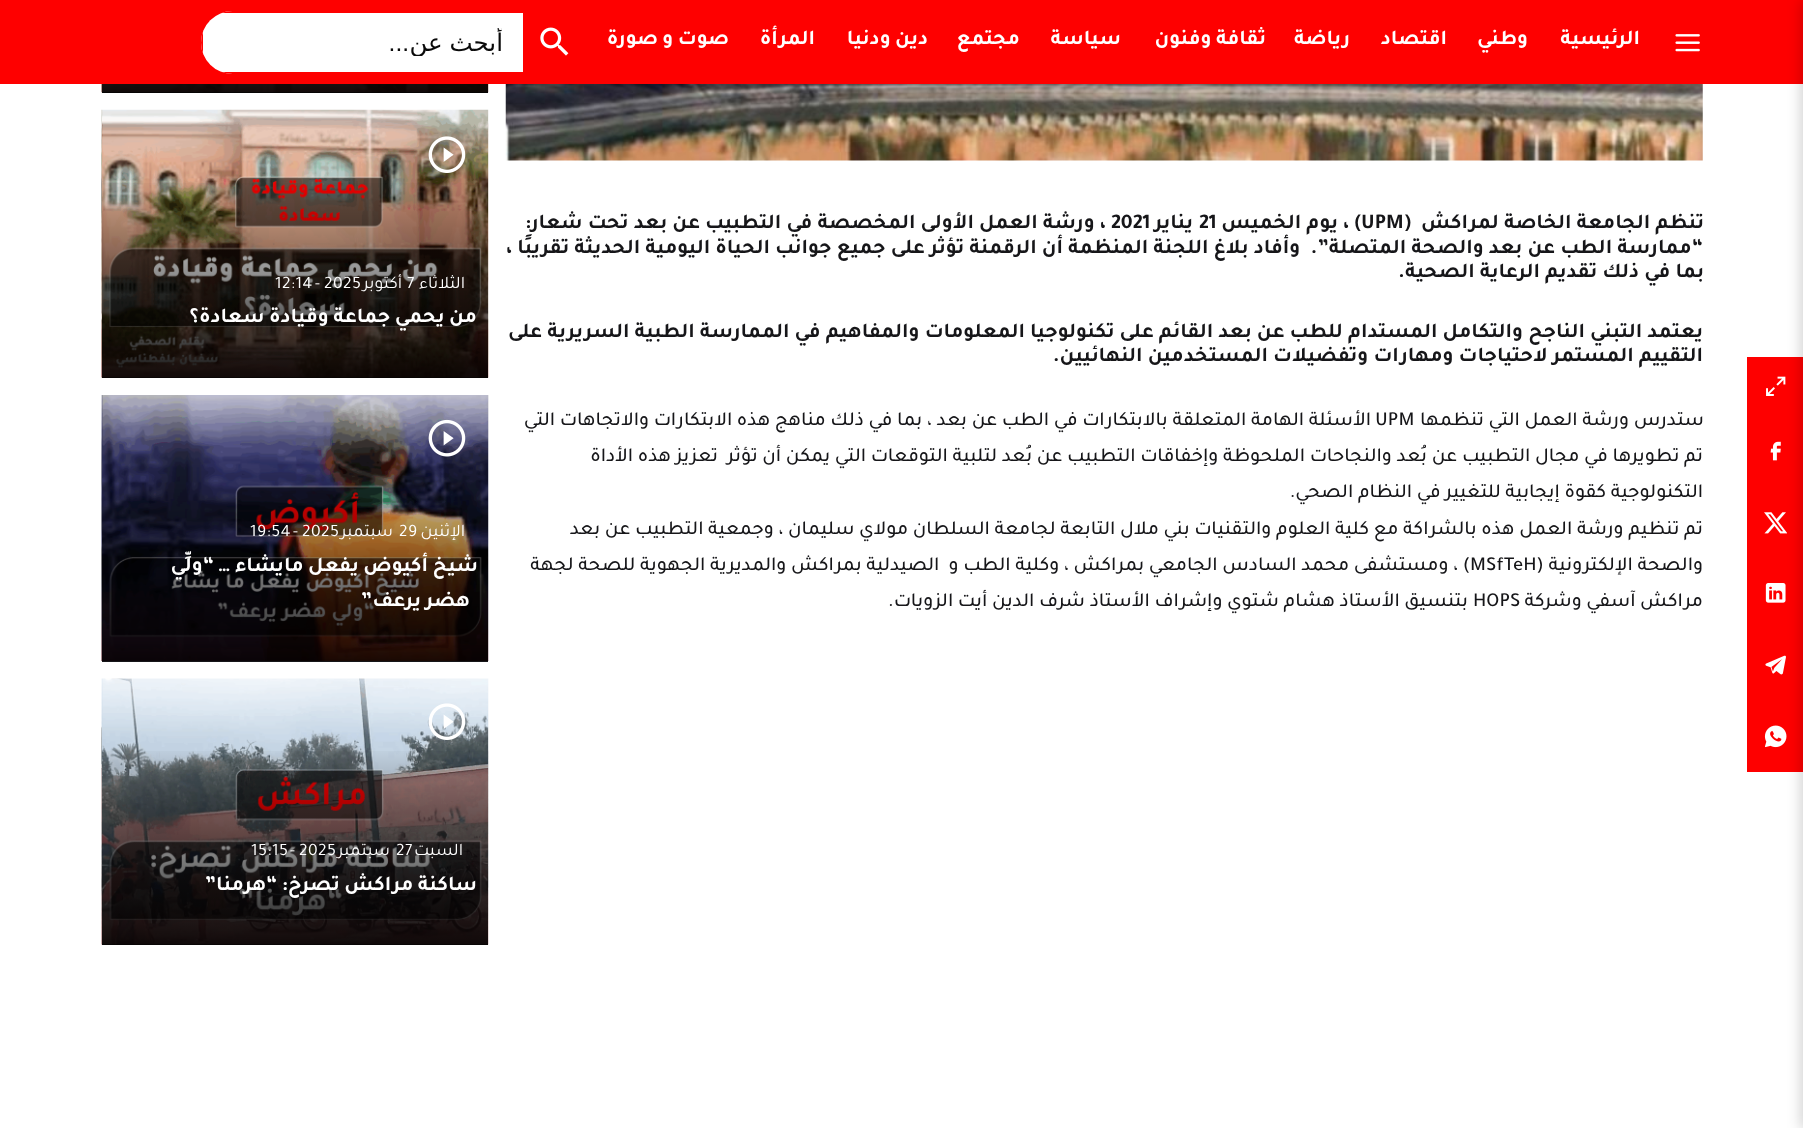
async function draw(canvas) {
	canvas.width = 1803;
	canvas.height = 1128;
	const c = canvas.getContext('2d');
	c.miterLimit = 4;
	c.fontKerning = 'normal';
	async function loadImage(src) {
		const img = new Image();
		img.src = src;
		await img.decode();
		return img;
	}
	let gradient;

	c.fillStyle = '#fff';
	c.fillRect(0, 0, 1803, 1128);
	c.fillStyle = '#fe0000';
	c.fillRect(0, 0, 1803, 84);
	c.fillRect(1747, 357, 56, 415);
	c.drawImage(await loadImage('img4.png'), 1766, 376, 20, 20);
	c.drawImage(await loadImage('img5.png'), 1770, 441, 11, 20);
	c.drawImage(await loadImage('img6.png'), 1764, 512, 23, 22);
	c.drawImage(await loadImage('img7.png'), 1765, 583, 21, 20);
	c.drawImage(await loadImage('img8.png'), 1765, 655, 21, 20);
	c.drawImage(await loadImage('img9.png'), 1764, 725, 23, 23);
	c.fillStyle = '#00000030';
	c.filter = 'blur(7px)';
	c.beginPath();
	c.rect(1801, 0, 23, 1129);
	c.fill();
	c.filter = 'none';
	c.drawImage(await loadImage('img1.png'), 1675, 34, 25, 18);
	c.letterSpacing = '0.6px';
	c.direction = 'rtl';
	c.font = 'bold 21.1px Tajawal';
	c.fillStyle = '#fff';
	for (const [text, x, y] of [
		['الرئيسية', 1640, 44],
		['وطني', 1528, 44],
		['اقتصاد', 1447, 44],
		['رياضة', 1350, 44],
	]) {
		c.fillText(text, x, y);
	}
	c.wordSpacing = '-1.25px';
	c.fillText('ثقافة وفنون', 1266, 44);
	c.wordSpacing = '0px';
	c.fillText('سياسة', 1121, 44);
	c.fillText('مجتمع', 1020, 44);
	c.wordSpacing = '-1.25px';
	c.fillText('دين ودنيا', 928, 44);
	c.wordSpacing = '0px';
	c.fillText('المرأة', 815, 44);
	c.wordSpacing = '-1.25px';
	c.fillText('صوت و صورة', 729, 44);
	c.drawImage(await loadImage('img2.png'), 540, 27, 29, 29);
	c.beginPath();
	c.roundRect(201, 11, 322, 63, [31.5, 0, 0, 31.5]);
	c.fill();
	c.save();
	c.beginPath();
	c.roundRect(201, 11, 385, 63, 31.5);
	c.clip();
	for (const [x, y, w, h, color] of [
		[221, 11, 302, 2, '#fe0000'],
		[221, 72, 302, 2, '#fe0000'],
		[201, 31, 2, 23, '#fe0000'],
	]) {
		c.fillStyle = color;
		c.fillRect(x, y, w, h);
	}
	c.restore();
	c.save();
	c.beginPath();
	c.rect(224, 28, 278, 28);
	c.clip();
	c.letterSpacing = '0px';
	c.wordSpacing = '-1px';
	c.font = '24.5px DejaVu Sans';
	c.fillStyle = '#0a0a0a';
	c.fillText('أبحث عن', 503, 51);
	c.restore();
	c.letterSpacing = '0px';
	c.wordSpacing = '0px';
	c.font = '24.5px Liberation Sans';
	c.fillStyle = '#0a0a0a';
	c.fillText('...', 409, 51);
	c.drawImage(await loadImage('img3.png'), 505, 84, 1198, 77);
	c.font = 'bold 21.1px Tajawal';
	c.fillStyle = '#161619';
	c.fillText('تنظم الجامعة الخاصة لمراكش  (', 1704, 228);
	c.direction = 'ltr';
	c.fillText('UPM', 1361, 228);
	c.direction = 'rtl';
	c.fillText(') ، يوم الخميس', 1361, 228);
	c.direction = 'ltr';
	c.fillText('21', 1199, 228);
	c.direction = 'rtl';
	c.fillText('يناير', 1193, 228);
	c.direction = 'ltr';
	c.fillText('2021', 1111, 228);
	c.direction = 'rtl';
	for (const [text, x, y] of [
		['، ورشة العمل الأولى المخصصة في التطبيب عن بعد تحت شعار:', 1106, 228],
		['“ممارسة الطب عن بعد والصحة المتصلة”.  وأفاد بلاغ اللجنة المنظمة أن الرقمنة تؤثر على جميع جوانب الحياة اليومية الحديثة تقريبًا ،', 1703, 253],
		['بما في ذلك تقديم الرعاية الصحية.', 1704, 277],
		['يعتمد التبني الناجح والتكامل المستدام للطب عن بعد القائم على تكنولوجيا المعلومات والمفاهيم في الممارسة الطبية السريرية على', 1703, 337],
		['التقييم المستمر لاحتياجات ومهارات وتفضيلات المستخدمين النهائيين.', 1703, 361],
	]) {
		c.fillText(text, x, y);
	}
	c.font = '500 19.95px Tajawal';
	c.fillText('ستدرس ورشة العمل التي تنظمها', 1704, 425);
	c.direction = 'ltr';
	c.fillText('UPM', 1375, 425);
	c.direction = 'rtl';
	for (const [text, x, y] of [
		['الأسئلة الهامة المتعلقة بالابتكارات في الطب عن بعد ، بما في ذلك مناهج هذه الابتكارات والاتجاهات التي', 1371, 425],
		['تم تطويرها في مجال التطبيب عن بُعد والنجاحات الملحوظة وإخفاقات التطبيب عن بُعد لتلبية التوقعات التي يمكن أن تؤثر  تعزيز هذه الأداة', 1703, 461],
		['التكنولوجية كقوة إيجابية للتغيير في النظام الصحي.', 1703, 497],
		['تم تنظيم ورشة العمل هذه بالشراكة مع كلية العلوم والتقنيات بني ملال التابعة لجامعة السلطان مولاي سليمان ، وجمعية التطبيب عن بعد', 1703, 534],
		['والصحة الإلكترونية (', 1703, 570],
	]) {
		c.fillText(text, x, y);
	}
	c.direction = 'ltr';
	c.fillText('MSfTeH', 1470, 570);
	c.direction = 'rtl';
	c.fillText(') ، ومستشفى محمد السادس الجامعي بمراكش ، وكلية الطب و  الصيدلية بمراكش والمديرية الجهوية للصحة لجهة', 1470, 570);
	c.fillText('مراكش آسفي وشركة', 1703, 606);
	c.direction = 'ltr';
	c.fillText('HOPS', 1473, 606);
	c.direction = 'rtl';
	c.fillText('بتنسيق الأستاذ هشام شتوي وإشراف الأستاذ شرف الدين أيت الزويات.', 1468, 606);
	c.fillRect(102, 92, 386, 1);
	c.drawImage(await loadImage('img10.png'), 101, 84, 388, 9);
	gradient = c.createLinearGradient(295, -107, 295, 93);
	gradient.addColorStop(0, '#00000000');
	gradient.addColorStop(1, '#000000e6');
	c.fillStyle = gradient;
	c.fillRect(102, 84, 386, 9);
	c.fillStyle = '#161619';
	c.fillRect(102, 377, 386, 1);
	c.drawImage(await loadImage('img11.png'), 101, 109, 388, 269);
	c.drawImage(await loadImage('img12.png'), 428, 136, 38, 37);
	gradient = c.createLinearGradient(295, 178, 295, 378);
	gradient.addColorStop(0, '#00000000');
	gradient.addColorStop(1, '#000000e6');
	c.fillStyle = gradient;
	c.fillRect(102, 183, 386, 195);
	c.letterSpacing = '0.5px';
	c.font = '17.5px Tajawal';
	c.fillStyle = '#fff';
	c.fillText('الثلاثاء', 465, 288);
	c.direction = 'ltr';
	c.fillText('7', 407, 288);
	c.fillText('2025', 324, 288);
	c.direction = 'rtl';
	c.fillText('أكتوبر', 402, 288);
	c.direction = 'ltr';
	c.fillText('-', 315, 288);
	c.fillText('12:14', 275, 288);
	c.letterSpacing = '0.6px';
	c.wordSpacing = '-1.25px';
	c.direction = 'rtl';
	c.font = 'bold 21.1px Tajawal';
	c.fillText('من يحمي جماعة وقيادة سعادة؟', 477, 322);
	c.fillStyle = '#161619';
	c.fillRect(102, 661, 386, 1);
	c.drawImage(await loadImage('img13.png'), 101, 395, 388, 266);
	c.drawImage(await loadImage('img14.png'), 428, 419, 38, 38);
	c.letterSpacing = '0.5px';
	c.wordSpacing = '0px';
	c.font = '17.5px Tajawal';
	c.fillStyle = '#fff';
	c.fillText('الإثنين', 465, 536);
	c.direction = 'ltr';
	c.fillText('29', 399, 536);
	c.fillText('2025', 302, 536);
	c.direction = 'rtl';
	c.fillText('سبتمبر', 393, 536);
	c.direction = 'ltr';
	c.fillText('-', 293, 536);
	c.fillText('19:54', 250, 536);
	c.letterSpacing = '0.6px';
	c.wordSpacing = '-1.25px';
	c.direction = 'rtl';
	c.font = 'bold 21.1px Tajawal';
	c.fillText('شيخ أكيوض يفعل مايشاء … “ولِّي', 478, 571);
	c.fillText('هضر يرعف”', 470, 606);
	c.fillStyle = '#161619';
	c.fillRect(102, 944, 386, 1);
	c.drawImage(await loadImage('img15.png'), 101, 678, 388, 267);
	c.drawImage(await loadImage('img16.png'), 428, 703, 38, 37);
	gradient = c.createLinearGradient(295, 746, 295, 945);
	gradient.addColorStop(0, '#00000000');
	gradient.addColorStop(1, '#000000e6');
	c.fillStyle = gradient;
	c.fillRect(102, 751, 386, 194);
	c.letterSpacing = '0.5px';
	c.wordSpacing = '0px';
	c.font = '17.5px Tajawal';
	c.fillStyle = '#fff';
	c.fillText('السبت', 463, 855);
	c.direction = 'ltr';
	c.fillText('27', 396, 855);
	c.fillText('2025', 299, 855);
	c.direction = 'rtl';
	c.fillText('سبتمبر', 390, 855);
	c.direction = 'ltr';
	c.fillText('-', 290, 855);
	c.fillText('15:15', 251, 855);
	c.letterSpacing = '0.6px';
	c.wordSpacing = '-1.25px';
	c.direction = 'rtl';
	c.font = 'bold 21.1px Tajawal';
	c.fillText('ساكنة مراكش تصرخ: “هرمنا”', 477, 890);
}

draw(document.querySelector('canvas'));
